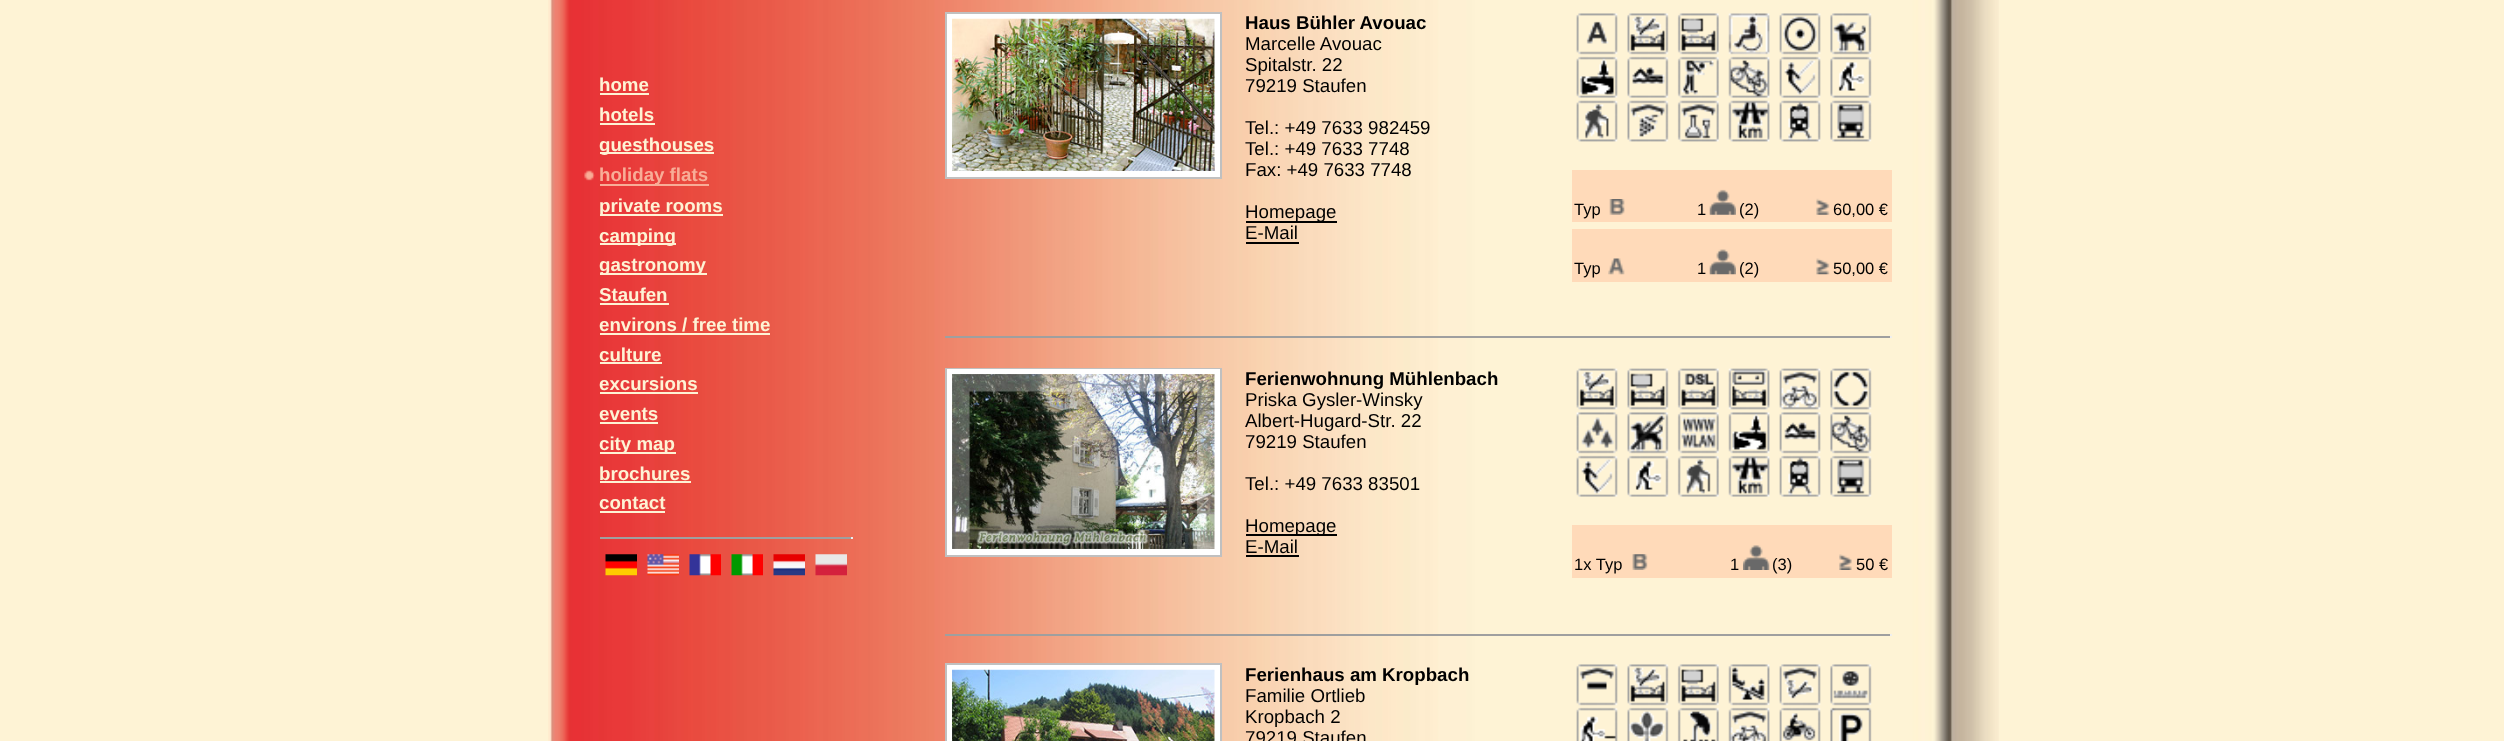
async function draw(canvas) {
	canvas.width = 2504;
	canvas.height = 741;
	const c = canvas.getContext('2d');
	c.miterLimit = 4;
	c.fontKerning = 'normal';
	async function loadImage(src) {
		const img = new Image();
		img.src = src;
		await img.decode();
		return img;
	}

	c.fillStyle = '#fef3d5';
	c.fillRect(0, 0, 2504, 741);
	c.drawImage(await loadImage('img1.png'), 548, 0, 1451, 741);
	c.font = 'bold 18.7px Liberation Sans';
	c.fillText('home', 599, 91);
	c.fillRect(600, 93, 49, 2);
	c.fillText('hotels', 599, 121);
	c.fillRect(600, 123, 55, 2);
	c.fillRect(600, 152, 114, 2);
	c.fillText('guesthouses', 599, 151);
	c.drawImage(await loadImage('img2.png'), 584, 170, 11, 11);
	c.fillStyle = '#f8ad97';
	c.fillRect(600, 184, 109, 2);
	c.fillText('holiday flats', 599, 181);
	c.fillStyle = '#fef3d5';
	c.fillRect(600, 214, 123, 2);
	c.fillText('private rooms', 599, 212);
	c.fillRect(600, 243, 76, 2);
	c.fillText('camping', 599, 242);
	c.fillRect(600, 273, 107, 2);
	c.fillText('gastronomy', 599, 271);
	c.fillText('Staufen', 599, 301);
	c.fillRect(600, 303, 69, 2);
	c.fillText('environs / free time', 599, 331);
	c.fillRect(600, 333, 170, 2);
	c.fillText('culture', 599, 361);
	c.fillRect(600, 362, 62, 2);
	c.fillText('excursions', 599, 390);
	c.fillRect(600, 392, 98, 2);
	c.fillText('events', 599, 420);
	c.fillRect(600, 422, 58, 2);
	c.fillRect(600, 452, 76, 2);
	c.fillText('city map', 599, 450);
	c.fillText('brochures', 599, 480);
	c.fillRect(600, 481, 91, 2);
	c.fillText('contact', 599, 509);
	for (const [x, y, w, h, color] of [
		[600, 511, 65, 2, '#fef3d5'],
		[600, 537, 252, 2, '#9f9f9f'],
		[851, 537, 2, 2, '#eee'],
	]) {
		c.fillStyle = color;
		c.fillRect(x, y, w, h);
	}
	c.drawImage(await loadImage('img3.png'), 605, 554, 32, 22);
	c.drawImage(await loadImage('img4.png'), 647, 554, 32, 22);
	c.drawImage(await loadImage('img5.png'), 689, 554, 32, 22);
	c.drawImage(await loadImage('img6.png'), 731, 554, 32, 22);
	c.drawImage(await loadImage('img7.png'), 773, 554, 32, 22);
	c.drawImage(await loadImage('img8.png'), 815, 554, 32, 22);
	c.fillStyle = '#c0c0c0';
	c.fillRect(945, 12, 277, 167);
	c.fillStyle = '#fff';
	c.fillRect(947, 14, 273, 163);
	c.drawImage(await loadImage('img9.png'), 952, 18, 263, 153);
	c.fillStyle = '#000';
	c.fillText('Haus Bühler Avouac', 1245, 29);
	c.font = '18.7px Liberation Sans';
	for (const [text, x, y] of [
		['Marcelle Avouac', 1245, 50],
		['Spitalstr. 22', 1245, 71],
		['79219 Staufen', 1245, 92],
		['Tel.: +49 7633 982459', 1245, 134],
		['Tel.: +49 7633 7748', 1245, 155],
		['Fax: +49 7633 7748', 1245, 176],
	]) {
		c.fillText(text, x, y);
	}
	c.fillRect(1246, 221, 91, 2);
	c.fillText('Homepage', 1245, 218);
	c.fillText('E-Mail', 1245, 239);
	c.fillRect(1246, 242, 53, 2);
	c.drawImage(await loadImage('img10.png'), 1576, 13, 42, 42);
	c.drawImage(await loadImage('img11.png'), 1627, 13, 42, 42);
	c.drawImage(await loadImage('img12.png'), 1677, 13, 42, 42);
	c.drawImage(await loadImage('img13.png'), 1728, 13, 42, 42);
	c.drawImage(await loadImage('img14.png'), 1779, 13, 42, 42);
	c.drawImage(await loadImage('img15.png'), 1830, 13, 42, 42);
	c.drawImage(await loadImage('img16.png'), 1576, 56, 42, 42);
	c.drawImage(await loadImage('img17.png'), 1627, 56, 42, 42);
	c.drawImage(await loadImage('img18.png'), 1677, 56, 42, 42);
	c.drawImage(await loadImage('img19.png'), 1728, 56, 42, 42);
	c.drawImage(await loadImage('img20.png'), 1779, 56, 42, 42);
	c.drawImage(await loadImage('img21.png'), 1830, 56, 42, 42);
	c.drawImage(await loadImage('img22.png'), 1576, 100, 42, 42);
	c.drawImage(await loadImage('img23.png'), 1627, 100, 42, 42);
	c.drawImage(await loadImage('img24.png'), 1677, 100, 42, 42);
	c.drawImage(await loadImage('img25.png'), 1728, 100, 42, 42);
	c.drawImage(await loadImage('img26.png'), 1779, 100, 42, 42);
	c.drawImage(await loadImage('img27.png'), 1830, 100, 42, 42);
	c.fillStyle = '#ffdab9';
	c.fillRect(1572, 170, 320, 52);
	c.font = '16.5px Liberation Sans';
	c.fillStyle = '#000';
	c.fillText('Typ', 1574, 215);
	c.drawImage(await loadImage('img28.png'), 1609, 199, 16, 16);
	c.fillText('1', 1697, 215);
	c.drawImage(await loadImage('img29.png'), 1709, 189, 27, 26);
	c.fillText('(2)', 1739, 215);
	c.drawImage(await loadImage('img30.png'), 1816, 198, 14, 17);
	c.fillText('60,00 €', 1833, 215);
	c.fillStyle = '#ffdab9';
	c.fillRect(1572, 229, 320, 53);
	c.fillStyle = '#000';
	c.fillText('Typ', 1574, 274);
	c.drawImage(await loadImage('img31.png'), 1608, 258, 17, 17);
	c.fillText('1', 1697, 274);
	c.drawImage(await loadImage('img32.png'), 1709, 249, 27, 26);
	c.fillText('(2)', 1739, 274);
	c.drawImage(await loadImage('img33.png'), 1816, 258, 14, 17);
	c.fillText('50,00 €', 1833, 274);
	for (const [x, y, w, h, color] of [
		[945, 336, 947, 2, '#9f9f9f'],
		[1890, 336, 2, 2, '#eee'],
		[945, 368, 277, 189, '#c0c0c0'],
		[947, 369, 273, 186, '#fff'],
	]) {
		c.fillStyle = color;
		c.fillRect(x, y, w, h);
	}
	c.drawImage(await loadImage('img34.png'), 952, 374, 263, 175);
	c.font = 'bold 18.7px Liberation Sans';
	c.fillStyle = '#000';
	c.fillText('Ferienwohnung Mühlenbach', 1245, 385);
	c.font = '18.7px Liberation Sans';
	for (const [text, x, y] of [
		['Priska Gysler-Winsky', 1245, 406],
		['Albert-Hugard-Str. 22', 1245, 427],
		['79219 Staufen', 1245, 448],
		['Tel.: +49 7633 83501', 1245, 490],
	]) {
		c.fillText(text, x, y);
	}
	c.fillRect(1246, 534, 91, 2);
	c.fillText('Homepage', 1245, 532);
	c.fillText('E-Mail', 1245, 553);
	c.fillRect(1246, 555, 53, 2);
	c.drawImage(await loadImage('img35.png'), 1576, 368, 42, 42);
	c.drawImage(await loadImage('img36.png'), 1627, 368, 42, 42);
	c.drawImage(await loadImage('img37.png'), 1677, 368, 42, 42);
	c.drawImage(await loadImage('img38.png'), 1728, 368, 42, 42);
	c.drawImage(await loadImage('img39.png'), 1779, 368, 42, 42);
	c.drawImage(await loadImage('img40.png'), 1830, 368, 42, 42);
	c.drawImage(await loadImage('img41.png'), 1576, 412, 42, 42);
	c.drawImage(await loadImage('img42.png'), 1627, 412, 42, 42);
	c.drawImage(await loadImage('img43.png'), 1677, 412, 42, 42);
	c.drawImage(await loadImage('img44.png'), 1728, 412, 42, 42);
	c.drawImage(await loadImage('img45.png'), 1779, 412, 42, 42);
	c.drawImage(await loadImage('img46.png'), 1830, 412, 42, 42);
	c.drawImage(await loadImage('img20.png'), 1576, 455, 42, 42);
	c.drawImage(await loadImage('img47.png'), 1627, 455, 42, 42);
	c.drawImage(await loadImage('img48.png'), 1677, 455, 42, 42);
	c.drawImage(await loadImage('img49.png'), 1728, 455, 42, 42);
	c.drawImage(await loadImage('img50.png'), 1779, 455, 42, 42);
	c.drawImage(await loadImage('img51.png'), 1830, 455, 42, 42);
	c.fillStyle = '#ffdab9';
	c.fillRect(1572, 525, 320, 53);
	c.font = '16.5px Liberation Sans';
	c.fillStyle = '#000';
	c.fillText('1x Typ', 1574, 570);
	c.drawImage(await loadImage('img52.png'), 1632, 554, 16, 16);
	c.fillText('1', 1730, 570);
	c.drawImage(await loadImage('img53.png'), 1743, 545, 27, 25);
	c.fillText('(3)', 1772, 570);
	c.drawImage(await loadImage('img54.png'), 1839, 554, 13, 16);
	c.fillText('50 €', 1856, 570);
	for (const [x, y, w, h, color] of [
		[945, 634, 947, 2, '#9f9f9f'],
		[1890, 634, 2, 2, '#eee'],
		[945, 663, 277, 78, '#c0c0c0'],
		[947, 665, 273, 76, '#fff'],
	]) {
		c.fillStyle = color;
		c.fillRect(x, y, w, h);
	}
	c.drawImage(await loadImage('img55.png'), 952, 669, 263, 72);
	c.font = 'bold 18.7px Liberation Sans';
	c.fillStyle = '#000';
	c.fillText('Ferienhaus am Kropbach', 1245, 681);
	c.font = '18.7px Liberation Sans';
	for (const [text, x, y] of [
		['Familie Ortlieb', 1245, 702],
		['Kropbach 2', 1245, 723],
		['79219 Staufen', 1245, 744],
	]) {
		c.fillText(text, x, y);
	}
	c.drawImage(await loadImage('img56.png'), 1576, 664, 42, 42);
	c.drawImage(await loadImage('img11.png'), 1627, 664, 42, 42);
	c.drawImage(await loadImage('img12.png'), 1677, 664, 42, 42);
	c.drawImage(await loadImage('img57.png'), 1728, 664, 42, 42);
	c.drawImage(await loadImage('img58.png'), 1779, 664, 42, 42);
	c.drawImage(await loadImage('img59.png'), 1830, 664, 42, 42);
	c.drawImage(await loadImage('img60.png'), 1576, 707, 42, 34);
	c.drawImage(await loadImage('img61.png'), 1627, 707, 42, 34);
	c.drawImage(await loadImage('img62.png'), 1677, 707, 42, 34);
	c.drawImage(await loadImage('img63.png'), 1728, 707, 42, 34);
	c.drawImage(await loadImage('img64.png'), 1779, 707, 42, 34);
	c.drawImage(await loadImage('img65.png'), 1830, 707, 42, 34);
}

draw(document.querySelector('canvas'));
